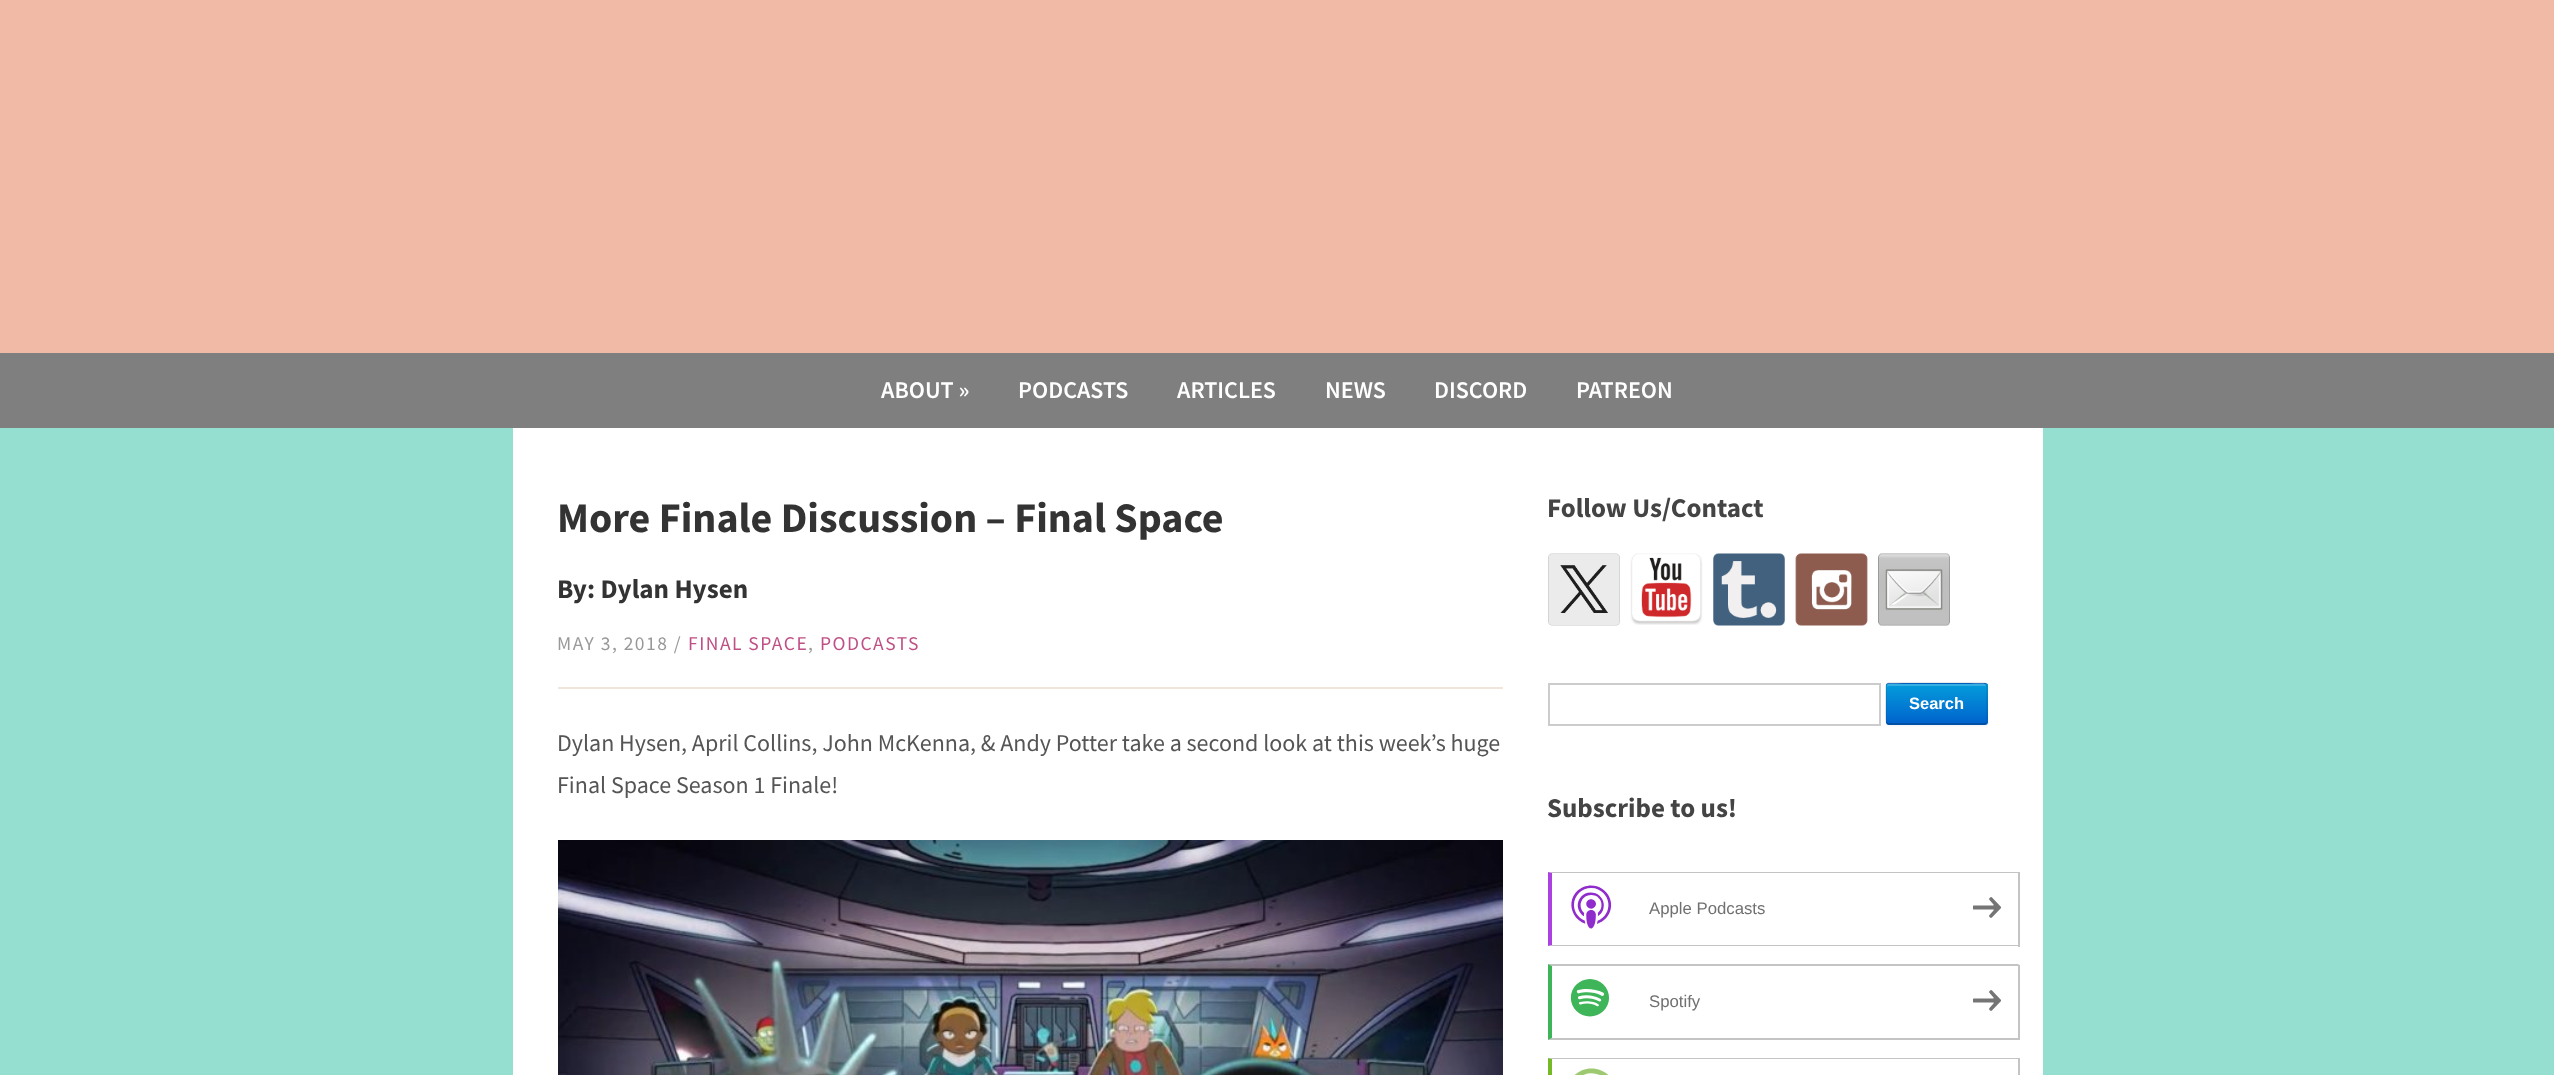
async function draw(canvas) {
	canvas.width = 2554;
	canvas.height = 1075;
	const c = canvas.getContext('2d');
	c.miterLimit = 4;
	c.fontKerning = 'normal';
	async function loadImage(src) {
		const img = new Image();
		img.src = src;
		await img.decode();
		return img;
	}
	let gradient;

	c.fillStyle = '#95dfd0';
	c.fillRect(0, 0, 2554, 1075);
	c.fillStyle = '#f1baa6';
	c.fillRect(0, 0, 2554, 353);
	c.fillStyle = '#7f7f7f';
	c.fillRect(0, 353, 2554, 75);
	c.font = '600 24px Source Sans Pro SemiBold';
	c.fillStyle = '#fff';
	for (const [text, x, y] of [
		['ABOUT »', 881, 398],
		['PODCASTS', 1018, 398],
		['ARTICLES', 1177, 398],
		['NEWS', 1325, 398],
		['DISCORD', 1434, 398],
		['PATREON', 1576, 398],
	]) {
		c.fillText(text, x, y);
	}
	c.fillRect(513, 428, 1530, 647);
	c.font = 'bold 42px Source Sans Pro';
	c.fillStyle = '#333';
	c.fillText('More Finale Discussion – Final Space', 557, 532);
	c.font = 'bold 27px Source Sans Pro';
	c.fillText('By: Dylan Hysen', 557, 598);
	c.letterSpacing = '1.5px';
	c.font = '19.5px Source Sans Pro';
	c.fillStyle = '#999';
	c.fillText('MAY 3, 2018 /', 557, 650);
	c.fillStyle = '#bf5085';
	c.fillText('FINAL SPACE', 688, 650);
	c.fillStyle = '#999';
	c.fillText(',', 808, 650);
	c.fillStyle = '#bf5085';
	c.fillText('PODCASTS', 820, 650);
	c.fillStyle = '#f0e5d8';
	c.fillRect(558, 687, 945, 2);
	c.letterSpacing = '0px';
	c.font = '24px Source Sans Pro';
	c.fillStyle = '#555';
	c.fillText('Dylan Hysen, April Collins, John McKenna, & Andy Potter take a second look at this week’s huge', 557, 751);
	c.fillText('Final Space Season 1 Finale!', 557, 793);
	c.drawImage(await loadImage('img1.png'), 558, 840, 945, 235);
	c.font = 'bold 27px Source Sans Pro';
	c.fillStyle = '#444';
	c.fillText('Follow Us/Contact', 1547, 517);
	c.drawImage(await loadImage('img2.png'), 1548, 553, 72, 73);
	c.drawImage(await loadImage('img3.png'), 1630, 553, 73, 72);
	c.drawImage(await loadImage('img4.png'), 1713, 553, 72, 73);
	c.drawImage(await loadImage('img5.png'), 1795, 553, 73, 73);
	c.drawImage(await loadImage('img6.png'), 1878, 553, 72, 73);
	c.strokeStyle = '#ccc';
	c.lineWidth = 2;
	c.strokeRect(1549, 684, 331, 41);
	c.fillStyle = '#0000000d';
	c.filter = 'blur(1.5px)';
	c.beginPath();
	c.roundRect(1886, 684, 102, 42, 3);
	c.fill();
	c.filter = 'none';
	c.fillStyle = '#0064cd';
	c.beginPath();
	c.roundRect(1886, 683, 102, 42, 3);
	c.fill();
	c.save();
	c.beginPath();
	c.roundRect(1886, 683, 102, 42, 3);
	c.clip();
	gradient = c.createLinearGradient(1937, 684, 1937, 723);
	gradient.addColorStop(0, '#049cdb');
	gradient.addColorStop(1, '#0064cd');
	c.fillStyle = gradient;
	c.fillRect(1886, 684, 102, 39);
	c.restore();
	c.fillStyle = '#ffffff33';
	c.beginPath();
	c.moveTo(1888, 686);
	c.lineTo(1984, 686);
	c.bezierCurveTo(1985, 686, 1986, 686, 1986, 687);
	c.bezierCurveTo(1986, 679, 1974, 684, 1968, 684);
	c.lineTo(1904, 684);
	c.bezierCurveTo(1899, 684, 1887, 679, 1887, 687);
	c.closePath();
	c.fill();
	c.beginPath();
	c.moveTo(1986, 723);
	c.lineTo(1984.5, 724);
	c.lineTo(1888.5, 724);
	c.lineTo(1887, 723);
	c.strokeStyle = '#00000040';
	c.lineWidth = 1.5;
	c.stroke();
	c.beginPath();
	c.moveTo(1887, 723);
	c.bezierCurveTo(1885, 721.5, 1886, 706.5, 1886, 703.5);
	c.lineTo(1886, 691.5);
	c.bezierCurveTo(1886, 690.5, 1885, 683.5, 1888.5, 683);
	c.lineTo(1984.5, 683);
	c.bezierCurveTo(1988, 683.5, 1987, 690.5, 1987, 691.5);
	c.lineTo(1987, 703.5);
	c.bezierCurveTo(1987, 706.5, 1988, 721.5, 1986, 723);
	c.strokeStyle = '#0000001a';
	c.stroke();
	c.font = 'bold 16.5px Liberation Sans';
	c.fillStyle = '#fff';
	c.fillText('Search', 1909, 709);
	c.font = 'bold 27px Source Sans Pro';
	c.fillStyle = '#444';
	c.fillText('Subscribe to us!', 1547, 817);
	c.fillStyle = '#c4c4c4';
	c.beginPath();
	c.moveTo(1548, 872);
	c.lineTo(2019, 872);
	c.lineTo(2018, 873);
	c.lineTo(1552, 873);
	c.closePath();
	c.fill();
	c.fillRect(2018, 872, 2, 75);
	c.beginPath();
	c.moveTo(2019, 946);
	c.lineTo(1548, 946);
	c.lineTo(1552, 945);
	c.lineTo(2018, 945);
	c.closePath();
	c.fill();
	c.fillStyle = '#ab42df';
	c.beginPath();
	c.moveTo(1548, 946);
	c.lineTo(1548, 872);
	c.lineTo(1552, 873);
	c.lineTo(1552, 945);
	c.closePath();
	c.fill();
	c.drawImage(await loadImage('img7.png'), 1571, 885, 41, 44);
	c.font = '16.75px Liberation Sans';
	c.fillStyle = '#707070';
	c.fillText('Apple Podcasts', 1649, 914);
	c.drawImage(await loadImage('img8.png'), 1973, 897, 28, 21);
	c.fillStyle = '#c4c4c4';
	c.beginPath();
	c.moveTo(1548, 964);
	c.lineTo(2019, 964);
	c.lineTo(2018, 966);
	c.lineTo(1552, 966);
	c.closePath();
	c.fill();
	c.fillRect(2018, 965, 2, 75);
	c.beginPath();
	c.moveTo(2019, 1040);
	c.lineTo(1548, 1040);
	c.lineTo(1552, 1038);
	c.lineTo(2018, 1038);
	c.closePath();
	c.fill();
	c.fillStyle = '#3eb559';
	c.beginPath();
	c.moveTo(1548, 1040);
	c.lineTo(1548, 964);
	c.lineTo(1552, 966);
	c.lineTo(1552, 1038);
	c.closePath();
	c.fill();
	c.drawImage(await loadImage('img9.png'), 1570, 979, 39, 38);
	c.fillStyle = '#707070';
	c.fillText('Spotify', 1649, 1007);
	c.drawImage(await loadImage('img8.png'), 1973, 990, 28, 21);
	c.fillStyle = '#c4c4c4';
	c.beginPath();
	c.moveTo(1548, 1058);
	c.lineTo(2019, 1058);
	c.lineTo(2018, 1059);
	c.lineTo(1552, 1059);
	c.closePath();
	c.fill();
	c.fillRect(2018, 1058, 2, 17);
	c.fillStyle = '#75ba26';
	c.beginPath();
	c.moveTo(1548, 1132);
	c.lineTo(1548, 1058);
	c.lineTo(1552, 1059);
	c.lineTo(1552, 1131);
	c.closePath();
	c.fill();
	c.drawImage(await loadImage('img10.png'), 1574, 1068, 35, 7);
}

draw(document.querySelector('canvas'));
